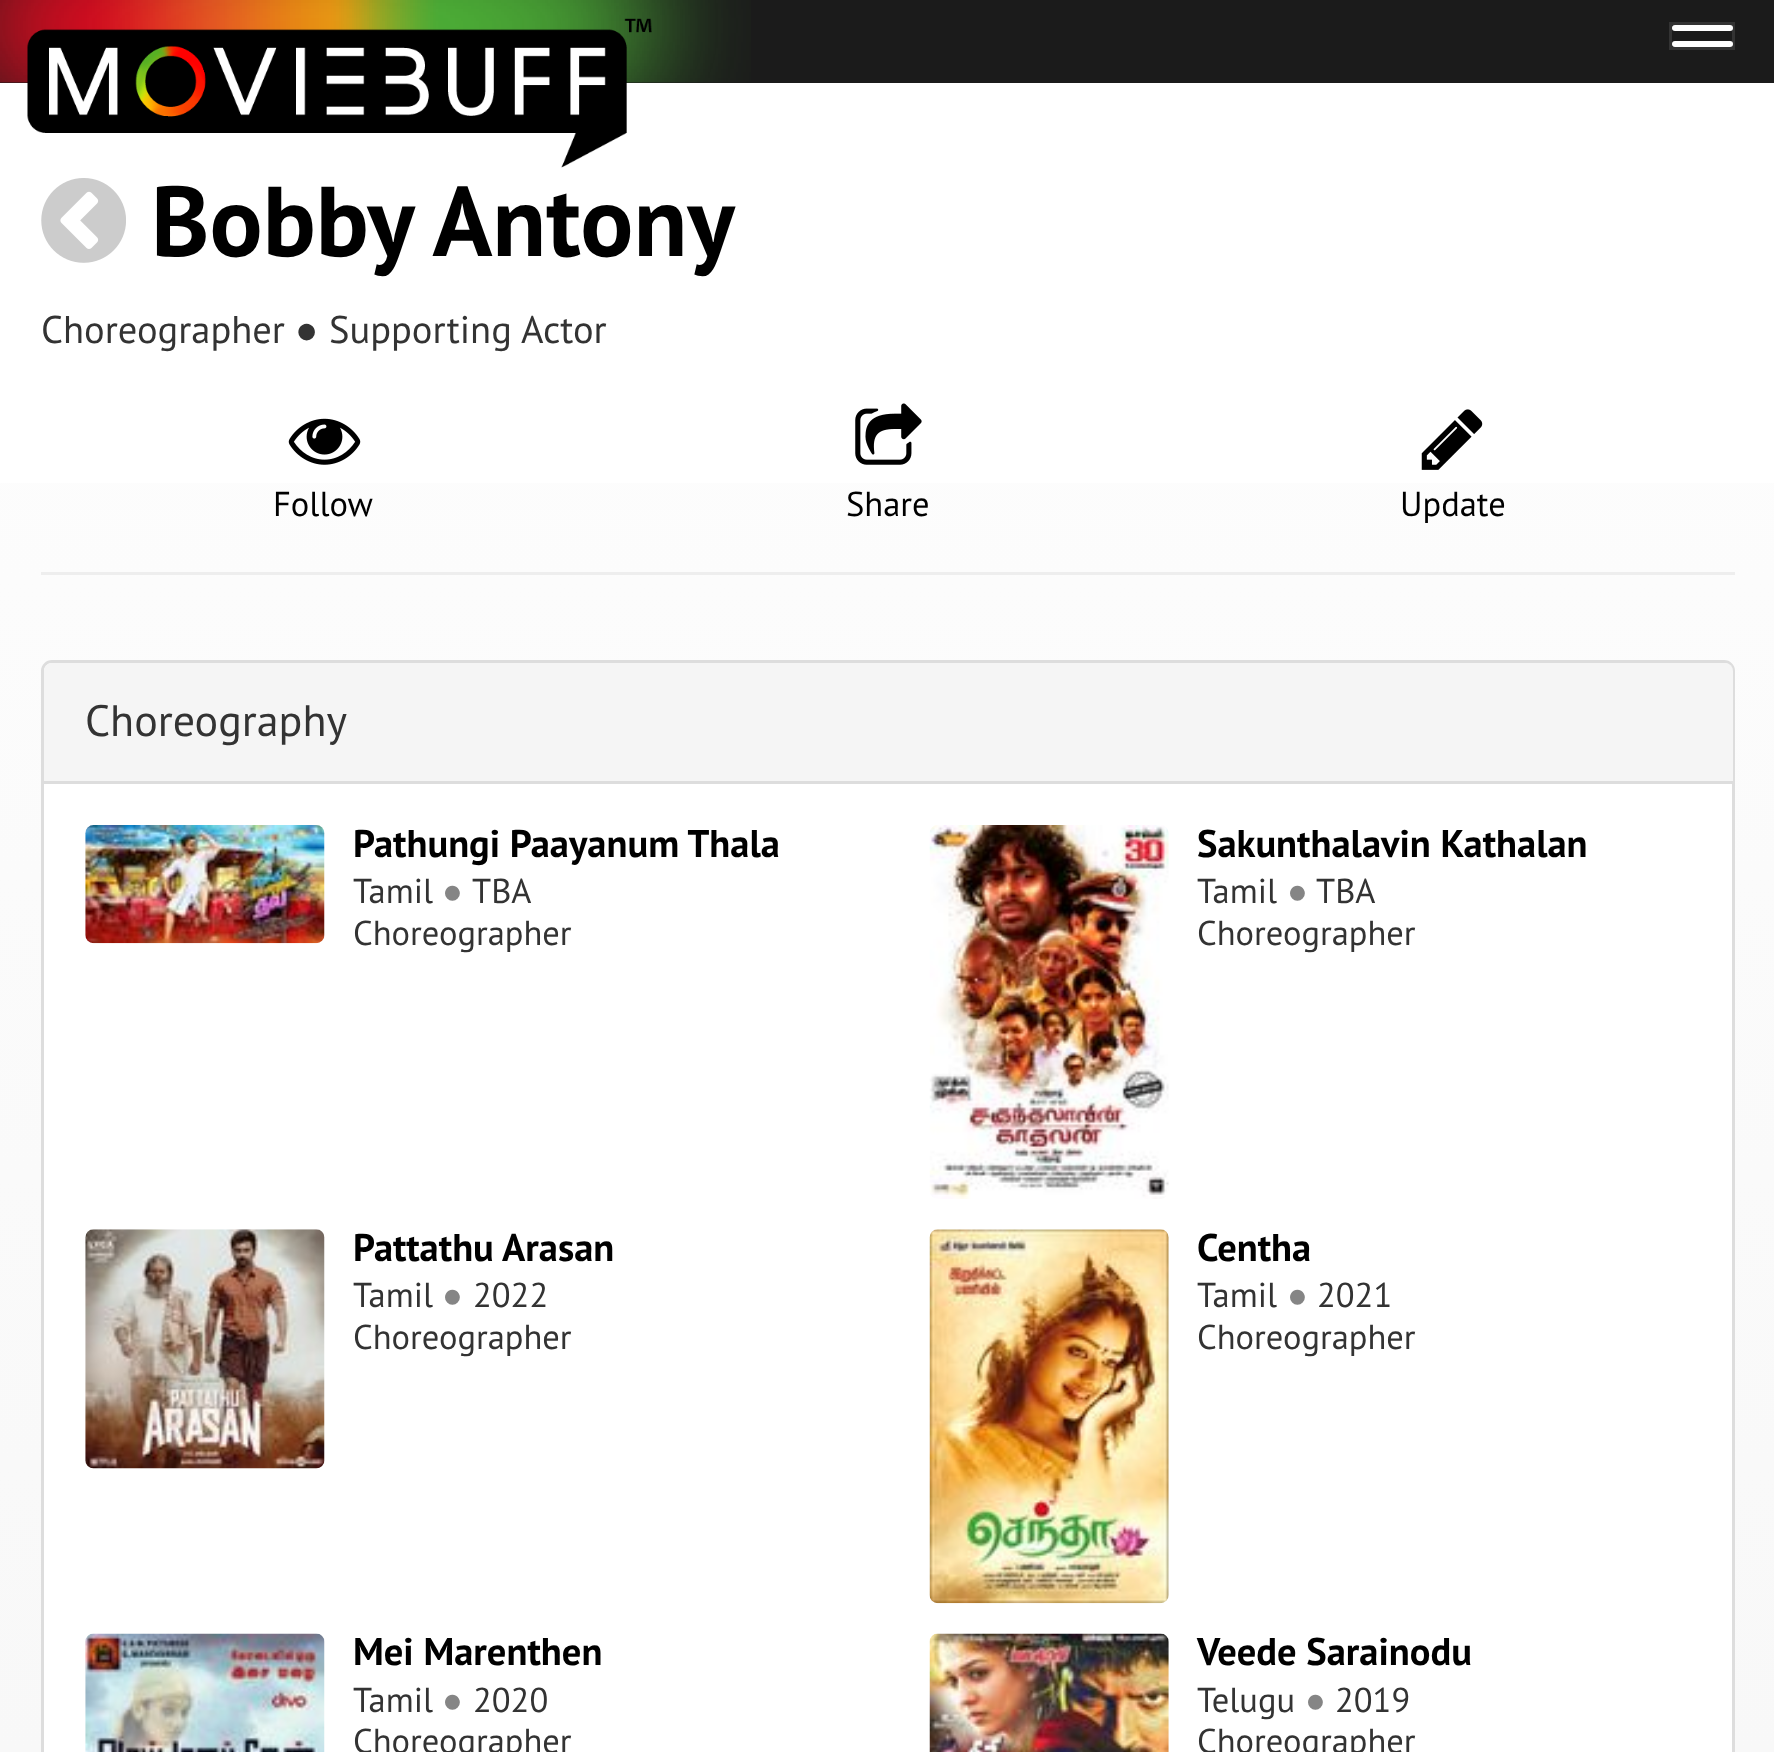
async function draw(canvas) {
	canvas.width = 1774;
	canvas.height = 1752;
	const c = canvas.getContext('2d');
	c.miterLimit = 4;
	c.fontKerning = 'normal';
	async function loadImage(src) {
		const img = new Image();
		img.src = src;
		await img.decode();
		return img;
	}
	let gradient;

	c.fillStyle = '#fff';
	c.fillRect(0, 0, 1774, 1752);
	gradient = c.createLinearGradient(888, 0, 888, 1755);
	gradient.addColorStop(0, '#fff');
	gradient.addColorStop(0.33, '#fcfcfc');
	gradient.addColorStop(0.67, '#fafafa');
	gradient.addColorStop(1, '#f8f8f8');
	c.fillStyle = gradient;
	c.fillRect(0, 483, 1774, 1269);
	c.fillStyle = '#1b1b1b';
	c.fillRect(0, 0, 1774, 83);
	c.drawImage(await loadImage('img1.png'), 0, 0, 751, 83);
	c.drawImage(await loadImage('img2.png'), 27, 18, 625, 150);
	c.strokeStyle = '#333';
	c.lineWidth = 3;
	c.strokeRect(1670.5, 23.5, 63, 25);
	c.fillStyle = '#fff';
	c.beginPath();
	c.roundRect(1672, 25, 61, 6, 3);
	c.fill();
	c.beginPath();
	c.roundRect(1672, 41, 61, 6, 3);
	c.fill();
	c.drawImage(await loadImage('img3.png'), 41, 178, 85, 85);
	c.font = 'bold 99px PT Sans';
	c.fillStyle = '#000';
	c.fillText('Bobby Antony', 151, 256);
	c.font = '38.5px PT Sans';
	c.fillStyle = '#333';
	c.fillText('Choreographer', 41, 343);
	c.font = '38.5px Liberation Serif';
	c.fillText('●', 295, 343);
	c.font = '38.5px PT Sans';
	c.fillText('Supporting Actor', 329, 343);
	c.drawImage(await loadImage('img4.png'), 288, 418, 73, 47);
	c.font = '34.5px PT Sans';
	c.fillStyle = '#000';
	c.fillText('Follow', 273, 516);
	c.drawImage(await loadImage('img5.png'), 855, 403, 67, 62);
	c.fillText('Share', 846, 516);
	c.drawImage(await loadImage('img6.png'), 1421, 409, 62, 61);
	c.fillText('Update', 1400, 516);
	c.fillStyle = '#eee';
	c.fillRect(41, 572, 1694, 3);
	c.fillStyle = '#fff';
	c.beginPath();
	c.roundRect(42.5, 661.5, 1691, 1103, 9.5);
	c.fill();
	c.strokeStyle = '#ddd';
	c.stroke();
	c.fillStyle = '#f5f5f5';
	c.beginPath();
	c.roundRect(44, 663, 1689, 121, [8, 8, 0, 0]);
	c.fill();
	c.fillStyle = '#ddd';
	c.fillRect(44, 781, 1689, 3);
	c.font = '44px PT Sans';
	c.fillStyle = '#333';
	c.fillText('Choreography', 85, 736);
	c.drawImage(await loadImage('img7.png'), 85, 825, 240, 119);
	c.font = 'bold 38.5px PT Sans';
	c.fillStyle = '#000';
	c.fillText('Pathungi Paayanum Thala', 353, 857);
	c.font = '34.5px PT Sans';
	c.fillStyle = '#333';
	c.fillText('Tamil', 353, 903);
	c.font = '34.5px Liberation Serif';
	c.fillStyle = '#858585';
	c.fillText('●', 442, 903);
	c.font = '34.5px PT Sans';
	c.fillStyle = '#333';
	c.fillText('TBA', 472, 903);
	c.fillText('Choreographer', 353, 945);
	c.drawImage(await loadImage('img8.png'), 929, 825, 240, 374);
	c.font = 'bold 38.5px PT Sans';
	c.fillStyle = '#000';
	c.fillText('Sakunthalavin Kathalan', 1197, 857);
	c.font = '34.5px PT Sans';
	c.fillStyle = '#333';
	c.fillText('Tamil', 1197, 903);
	c.font = '34.5px Liberation Serif';
	c.fillStyle = '#858585';
	c.fillText('●', 1287, 903);
	c.font = '34.5px PT Sans';
	c.fillStyle = '#333';
	c.fillText('TBA', 1316, 903);
	c.fillText('Choreographer', 1197, 945);
	c.drawImage(await loadImage('img9.png'), 85, 1229, 240, 240);
	c.font = 'bold 38.5px PT Sans';
	c.fillStyle = '#000';
	c.fillText('Pattathu Arasan', 353, 1261);
	c.font = '34.5px PT Sans';
	c.fillStyle = '#333';
	c.fillText('Tamil', 353, 1307);
	c.font = '34.5px Liberation Serif';
	c.fillStyle = '#858585';
	c.fillText('●', 442, 1307);
	c.font = '34.5px PT Sans';
	c.fillStyle = '#333';
	c.fillText('2022', 473, 1307);
	c.fillText('Choreographer', 353, 1349);
	c.drawImage(await loadImage('img10.png'), 929, 1229, 240, 375);
	c.font = 'bold 38.5px PT Sans';
	c.fillStyle = '#000';
	c.fillText('Centha', 1197, 1261);
	c.font = '34.5px PT Sans';
	c.fillStyle = '#333';
	c.fillText('Tamil', 1197, 1307);
	c.font = '34.5px Liberation Serif';
	c.fillStyle = '#858585';
	c.fillText('●', 1287, 1307);
	c.font = '34.5px PT Sans';
	c.fillStyle = '#333';
	c.fillText('2021', 1317, 1307);
	c.fillText('Choreographer', 1197, 1349);
	c.drawImage(await loadImage('img11.png'), 85, 1633, 240, 119);
	c.font = 'bold 38.5px PT Sans';
	c.fillStyle = '#000';
	c.fillText('Mei Marenthen', 353, 1665);
	c.font = '34.5px PT Sans';
	c.fillStyle = '#333';
	c.fillText('Tamil', 353, 1712);
	c.font = '34.5px Liberation Serif';
	c.fillStyle = '#858585';
	c.fillText('●', 442, 1712);
	c.font = '34.5px PT Sans';
	c.fillStyle = '#333';
	c.fillText('2020', 473, 1712);
	c.fillText('Choreographer', 353, 1753);
	c.drawImage(await loadImage('img12.png'), 929, 1633, 240, 119);
	c.font = 'bold 38.5px PT Sans';
	c.fillStyle = '#000';
	c.fillText('Veede Sarainodu', 1197, 1665);
	c.font = '34.5px PT Sans';
	c.fillStyle = '#333';
	c.fillText('Telugu', 1197, 1712);
	c.font = '34.5px Liberation Serif';
	c.fillStyle = '#858585';
	c.fillText('●', 1305, 1712);
	c.font = '34.5px PT Sans';
	c.fillStyle = '#333';
	c.fillText('2019', 1335, 1712);
	c.fillText('Choreographer', 1197, 1753);
}

draw(document.querySelector('canvas'));
